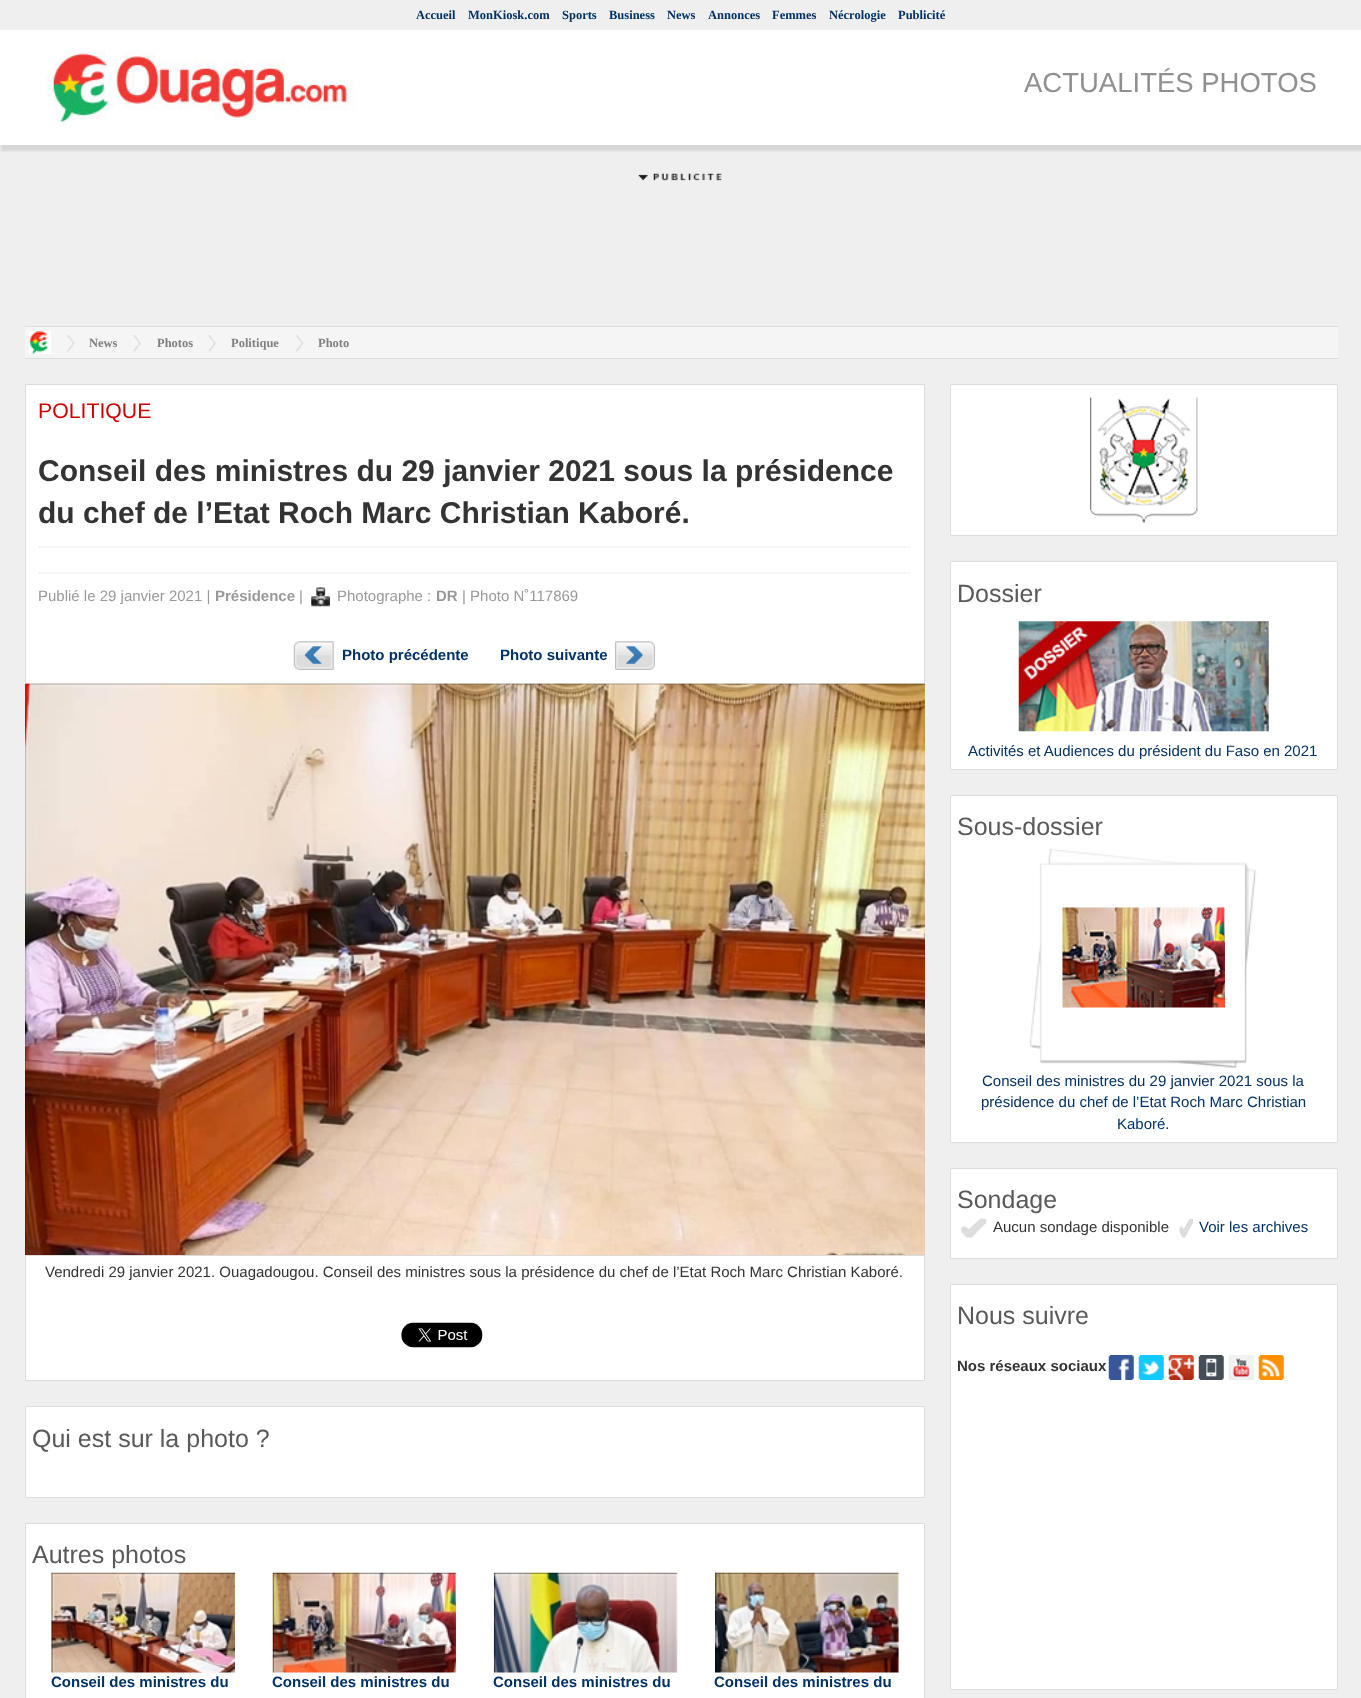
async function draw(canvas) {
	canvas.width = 1361;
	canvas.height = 1698;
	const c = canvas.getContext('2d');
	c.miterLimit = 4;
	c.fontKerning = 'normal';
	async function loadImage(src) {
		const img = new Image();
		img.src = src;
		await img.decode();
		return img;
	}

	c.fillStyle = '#efefef';
	c.fillRect(0, 0, 1361, 1698);
	c.font = 'bold 12.5px Liberation Serif';
	c.fillStyle = '#003266';
	for (const [text, x, y] of [
		['Accueil', 416, 19],
		['MonKiosk.com', 468, 19],
		['Sports', 562, 19],
		['Business', 609, 19],
		['News', 667, 19],
		['Annonces', 708, 19],
		['Femmes', 772, 19],
		['Nécrologie', 829, 19],
		['Publicité', 898, 19],
	]) {
		c.fillText(text, x, y);
	}
	c.fillStyle = '#0000001a';
	c.filter = 'blur(1px)';
	c.beginPath();
	c.rect(1, 36, 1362, 115);
	c.fill();
	c.filter = 'none';
	c.fillStyle = '#fff';
	c.fillRect(0, 30, 1361, 115);
	c.drawImage(await loadImage('img1.png'), 45, 50, 310, 75);
	c.font = '27.5px Liberation Sans';
	c.fillStyle = '#909090';
	c.fillText('ACTUALITÉS PHOTOS', 1024, 92);
	c.drawImage(await loadImage('img2.png'), 638, 173, 84, 8);
	for (const [x, y, w, h, color] of [
		[25, 327, 1313, 31, '#f5f5f5'],
		[25, 326, 1313, 1, '#dcdcdc'],
		[25, 358, 1313, 1, '#dcdcdc'],
	]) {
		c.fillStyle = color;
		c.fillRect(x, y, w, h);
	}
	c.drawImage(await loadImage('img3.png'), 29, 331, 22, 23);
	c.drawImage(await loadImage('img4.png'), 67, 335, 8, 17);
	c.font = 'bold 12.5px Liberation Serif';
	c.fillStyle = '#808080';
	c.fillText('News', 89, 347);
	c.drawImage(await loadImage('img5.png'), 133, 335, 8, 17);
	c.fillText('Photos', 157, 347);
	c.drawImage(await loadImage('img5.png'), 208, 335, 8, 17);
	c.fillText('Politique', 231, 347);
	c.drawImage(await loadImage('img6.png'), 296, 335, 8, 17);
	c.fillText('Photo', 318, 347);
	c.fillStyle = '#fff';
	c.beginPath();
	c.rect(25.5, 384.5, 899, 299);
	c.fill();
	c.strokeStyle = '#dcdcdc';
	c.stroke();
	c.font = '21.25px Liberation Sans';
	c.fillStyle = '#d10000';
	c.fillText('POLITIQUE', 38, 418);
	c.font = 'bold 30px Liberation Sans';
	c.fillStyle = '#333';
	c.fillText('Conseil des ministres du 29 janvier 2021 sous la présidence', 38, 481);
	c.fillText('du chef de l’Etat Roch Marc Christian Kaboré.', 38, 523);
	c.beginPath();
	c.moveTo(39, 547);
	c.lineTo(911, 547);
	c.lineWidth = 1.2;
	c.setLineDash([1.25, 1.25]);
	c.stroke();
	c.beginPath();
	c.moveTo(39, 573);
	c.lineTo(911, 573);
	c.stroke();
	c.font = '15px Liberation Sans';
	c.fillStyle = '#999';
	c.fillText('Publié le 29 janvier 2021 |', 38, 601);
	c.font = 'bold 15px Liberation Sans';
	c.fillText('Présidence', 215, 601);
	c.font = '15px Liberation Sans';
	c.fillText('|', 299, 601);
	c.drawImage(await loadImage('img7.png'), 311, 587, 19, 20);
	c.fillText('Photographe :', 337, 601);
	c.font = 'bold 15px Liberation Sans';
	c.fillText('DR', 436, 601);
	c.font = '15px Liberation Sans';
	c.fillText('| Photo N˚117869', 462, 601);
	c.drawImage(await loadImage('img8.png'), 293, 641, 41, 29);
	c.font = 'bold 15px Liberation Sans';
	c.fillStyle = '#003266';
	c.fillText('Photo précédente', 342, 660);
	c.fillText('Photo suivante', 500, 660);
	c.drawImage(await loadImage('img9.png'), 615, 641, 40, 29);
	c.drawImage(await loadImage('img10.png'), 25, 683, 900, 572);
	c.fillStyle = '#fff';
	c.beginPath();
	c.rect(25.5, 1255.5, 899, 125);
	c.fill();
	c.lineWidth = 1;
	c.setLineDash([]);
	c.stroke();
	c.font = '15px Liberation Sans';
	c.fillStyle = '#333';
	c.fillText('Vendredi 29 janvier 2021. Ouagadougou. Conseil des ministres sous la présidence du chef de l’Etat Roch Marc Christian Kaboré.', 45, 1277);
	c.drawImage(await loadImage('img11.png'), 401, 1322, 82, 26);
	c.fillStyle = '#fff';
	c.beginPath();
	c.rect(25.5, 1406.5, 899, 91);
	c.fill();
	c.stroke();
	c.font = '25px Liberation Sans';
	c.fillStyle = '#595959';
	c.fillText('Qui est sur la photo ?', 32, 1447);
	c.fillStyle = '#fff';
	c.beginPath();
	c.rect(25.5, 1523.5, 899, 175);
	c.fill();
	c.stroke();
	c.fillStyle = '#595959';
	c.fillText('Autres photos', 32, 1563);
	c.drawImage(await loadImage('img12.png'), 51, 1572, 184, 101);
	c.font = 'bold 15px Liberation Sans';
	c.fillStyle = '#003266';
	c.fillText('Conseil des ministres du', 51, 1687);
	c.drawImage(await loadImage('img13.png'), 272, 1572, 185, 101);
	c.fillText('Conseil des ministres du', 272, 1687);
	c.drawImage(await loadImage('img14.png'), 493, 1572, 185, 101);
	c.fillText('Conseil des ministres du', 493, 1687);
	c.drawImage(await loadImage('img15.png'), 715, 1572, 184, 101);
	c.fillText('Conseil des ministres du', 714, 1687);
	c.fillStyle = '#fff';
	c.beginPath();
	c.rect(950.5, 384.5, 387, 151);
	c.fill();
	c.stroke();
	c.drawImage(await loadImage('img16.png'), 1090, 397, 108, 126);
	c.beginPath();
	c.rect(950.5, 561.5, 387, 208);
	c.fill();
	c.stroke();
	c.font = '25px Liberation Sans';
	c.fillStyle = '#595959';
	c.fillText('Dossier', 957, 602);
	c.drawImage(await loadImage('img17.png'), 1018, 621, 251, 111);
	c.font = '15px Liberation Sans';
	c.fillStyle = '#003266';
	c.fillText('Activités et Audiences du président du Faso en 2021', 968, 756);
	c.fillStyle = '#fff';
	c.beginPath();
	c.rect(950.5, 795.5, 387, 347);
	c.fill();
	c.stroke();
	c.font = '25px Liberation Sans';
	c.fillStyle = '#595959';
	c.fillText('Sous-dossier', 957, 835);
	c.drawImage(await loadImage('img18.png'), 1030, 848, 227, 220);
	c.drawImage(await loadImage('img19.png'), 1062, 907, 163, 101);
	c.font = '15px Liberation Sans';
	c.fillStyle = '#003266';
	for (const [text, x, y] of [
		['Conseil des ministres du 29 janvier 2021 sous la', 982, 1086],
		['présidence du chef de l’Etat Roch Marc Christian', 981, 1107],
		['Kaboré.', 1117, 1129],
	]) {
		c.fillText(text, x, y);
	}
	c.fillStyle = '#fff';
	c.beginPath();
	c.rect(950.5, 1168.5, 387, 90);
	c.fill();
	c.stroke();
	c.font = '25px Liberation Sans';
	c.fillStyle = '#595959';
	c.fillText('Sondage', 957, 1208);
	c.drawImage(await loadImage('img20.png'), 961, 1218, 26, 20);
	c.font = '15px Liberation Sans';
	c.fillStyle = '#333';
	c.fillText('Aucun sondage disponible', 993, 1232);
	c.drawImage(await loadImage('img21.png'), 1179, 1218, 14, 20);
	c.fillStyle = '#003266';
	c.fillText('Voir les archives', 1199, 1232);
	c.fillStyle = '#fff';
	c.beginPath();
	c.rect(950.5, 1284.5, 387, 405);
	c.fill();
	c.stroke();
	c.font = '25px Liberation Sans';
	c.fillStyle = '#595959';
	c.fillText('Nous suivre', 957, 1324);
	c.font = 'bold 15px Liberation Sans';
	c.fillStyle = '#333';
	c.fillText('Nos réseaux sociaux', 957, 1371);
	c.drawImage(await loadImage('img22.png'), 1108, 1355, 26, 25);
	c.drawImage(await loadImage('img23.png'), 1138, 1355, 26, 25);
	c.drawImage(await loadImage('img24.png'), 1168, 1355, 26, 25);
	c.drawImage(await loadImage('img25.png'), 1198, 1355, 26, 25);
	c.drawImage(await loadImage('img26.png'), 1228, 1355, 26, 25);
	c.drawImage(await loadImage('img27.png'), 1258, 1355, 26, 25);
}

draw(document.querySelector('canvas'));
